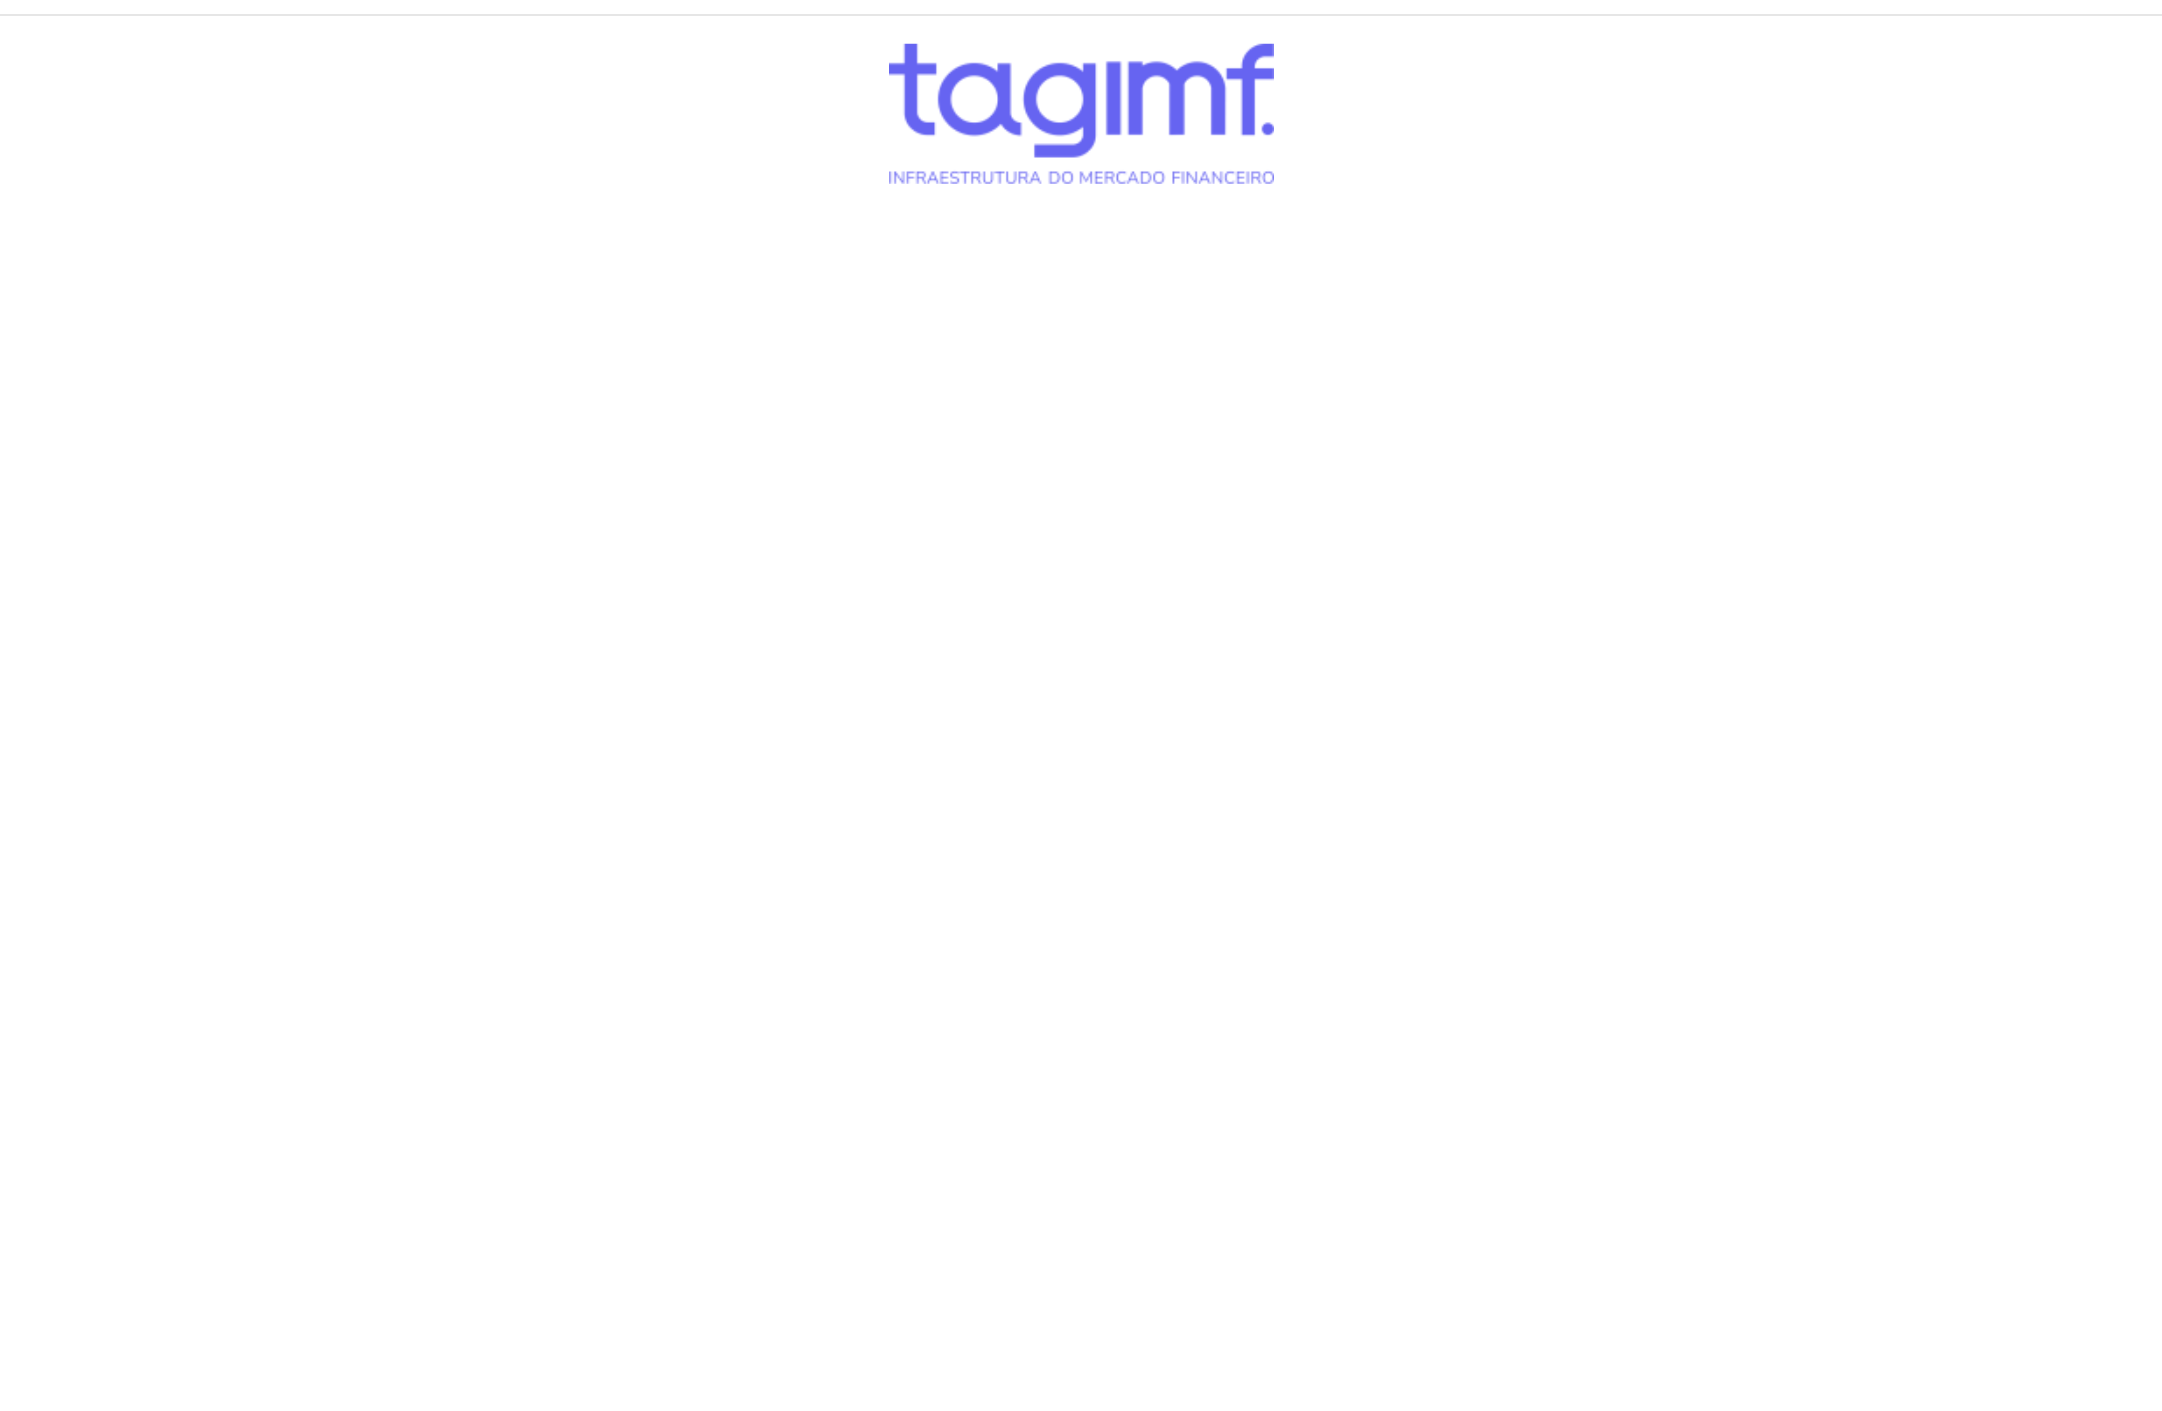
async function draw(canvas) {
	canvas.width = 2162;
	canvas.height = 1411;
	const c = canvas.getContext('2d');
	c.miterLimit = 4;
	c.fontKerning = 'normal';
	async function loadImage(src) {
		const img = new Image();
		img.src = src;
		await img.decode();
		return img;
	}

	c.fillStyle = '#fff';
	c.fillRect(0, 0, 2162, 1411);
	c.fillStyle = '#e6e6e6';
	c.fillRect(0, 14, 2162, 2);
	c.drawImage(await loadImage('img1.png'), 889, 43, 385, 141);
}

draw(document.querySelector('canvas'));
